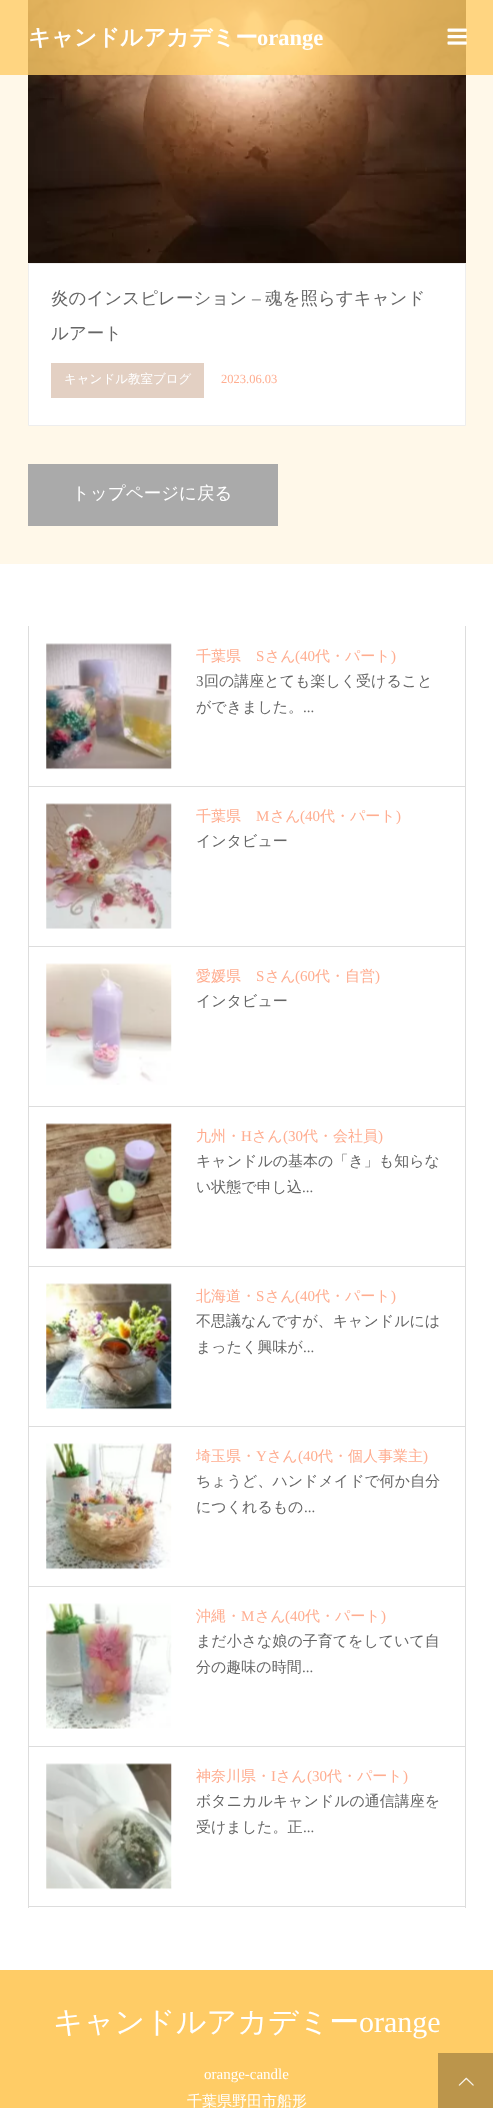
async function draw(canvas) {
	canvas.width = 493;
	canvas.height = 2108;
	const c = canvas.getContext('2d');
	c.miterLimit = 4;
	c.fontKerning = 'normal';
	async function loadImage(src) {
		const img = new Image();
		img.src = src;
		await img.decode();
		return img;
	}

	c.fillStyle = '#fff';
	c.fillRect(0, 0, 493, 2108);
	c.fillStyle = '#fff8e9';
	c.fillRect(0, 0, 493, 564);
	c.drawImage(await loadImage('img2.png'), 28, 0, 438, 263);
	c.fillStyle = '#ffcc66cc';
	c.fillRect(0, 0, 493, 75);
	c.font = 'bold 22.5px WenQuanYi Zen Hei';
	c.fillStyle = '#fff';
	c.fillText('キャンドルアカデミー', 28, 45);
	c.font = 'bold 22.5px Liberation Serif';
	c.fillText('orange', 257, 45);
	c.drawImage(await loadImage('img1.png'), 447, 28, 20, 17);
	c.beginPath();
	c.rect(28.5, 263.5, 437, 162);
	c.fill();
	c.strokeStyle = '#eee';
	c.stroke();
	c.font = '500 17.5px WenQuanYi Zen Hei';
	c.fillStyle = '#666';
	c.fillText('炎のインスピレーション', 51, 304);
	c.font = '17.5px Liberation Serif';
	c.fillText('–', 252, 304);
	c.font = '500 17.5px WenQuanYi Zen Hei';
	c.fillText('魂を照らすキャンド', 265, 304);
	c.fillText('ルアート', 51, 339);
	c.fillStyle = '#e3d0c3';
	c.fillRect(51, 363, 153, 35);
	c.font = '500 12.5px WenQuanYi Zen Hei';
	c.fillStyle = '#fff';
	c.fillText('キャンドル教室ブログ', 64, 383);
	c.font = '12.5px Liberation Serif';
	c.fillStyle = '#ffad90';
	c.fillText('2023.06.03', 221, 383);
	c.fillStyle = '#aaa';
	c.fillRect(28, 464, 250, 62);
	c.font = '500 17.5px WenQuanYi Zen Hei';
	c.fillStyle = '#fff';
	c.fillText('トップページに戻る', 72, 499);
	for (const [x, y, w, h, color] of [
		[465, 626, 1, 1282, '#ddd'],
		[28, 1906, 438, 1, '#ddd'],
		[28, 626, 1, 1282, '#ddd'],
		[29, 786, 436, 1, '#ddd'],
	]) {
		c.fillStyle = color;
		c.fillRect(x, y, w, h);
	}
	c.drawImage(await loadImage('img3.png'), 46, 643, 126, 127);
	c.font = '500 15px WenQuanYi Zen Hei';
	c.fillStyle = '#ffad90';
	c.fillText('千葉県', 196, 661);
	c.font = '15px Liberation Serif';
	c.fillText('S', 256, 661);
	c.font = '500 15px WenQuanYi Zen Hei';
	c.fillText('さん', 265, 661);
	c.font = '15px Liberation Serif';
	c.fillText('(40', 295, 661);
	c.font = '500 15px WenQuanYi Zen Hei';
	c.fillText('代・パート', 315, 661);
	c.font = '15px Liberation Serif';
	c.fillText(')', 391, 661);
	c.fillStyle = '#666';
	c.fillText('3', 196, 686);
	c.font = '500 15px WenQuanYi Zen Hei';
	c.fillText('回の講座とても楽しく受けること', 204, 686);
	c.fillText('ができました。', 196, 712);
	c.font = '15px Liberation Serif';
	c.fillText('...', 303, 712);
	c.fillStyle = '#ddd';
	c.fillRect(29, 946, 436, 1);
	c.drawImage(await loadImage('img4.png'), 46, 803, 126, 126);
	c.font = '500 15px WenQuanYi Zen Hei';
	c.fillStyle = '#ffad90';
	c.fillText('千葉県', 196, 821);
	c.font = '15px Liberation Serif';
	c.fillText('M', 256, 821);
	c.font = '500 15px WenQuanYi Zen Hei';
	c.fillText('さん', 270, 821);
	c.font = '15px Liberation Serif';
	c.fillText('(40', 300, 821);
	c.font = '500 15px WenQuanYi Zen Hei';
	c.fillText('代・パート', 320, 821);
	c.font = '15px Liberation Serif';
	c.fillText(')', 396, 821);
	c.font = '500 15px WenQuanYi Zen Hei';
	c.fillStyle = '#666';
	c.fillText('インタビュー', 196, 846);
	c.fillStyle = '#ddd';
	c.fillRect(29, 1106, 436, 1);
	c.drawImage(await loadImage('img5.png'), 46, 963, 126, 122);
	c.fillStyle = '#ffad90';
	c.fillText('愛媛県', 196, 981);
	c.font = '15px Liberation Serif';
	c.fillText('S', 256, 981);
	c.font = '500 15px WenQuanYi Zen Hei';
	c.fillText('さん', 265, 981);
	c.font = '15px Liberation Serif';
	c.fillText('(60', 295, 981);
	c.font = '500 15px WenQuanYi Zen Hei';
	c.fillText('代・自営', 315, 981);
	c.font = '15px Liberation Serif';
	c.fillText(')', 375, 981);
	c.font = '500 15px WenQuanYi Zen Hei';
	c.fillStyle = '#666';
	c.fillText('インタビュー', 196, 1006);
	c.fillStyle = '#ddd';
	c.fillRect(29, 1266, 436, 1);
	c.drawImage(await loadImage('img6.png'), 46, 1123, 126, 127);
	c.fillStyle = '#ffad90';
	c.fillText('九州・', 196, 1141);
	c.font = '15px Liberation Serif';
	c.fillText('H', 241, 1141);
	c.font = '500 15px WenQuanYi Zen Hei';
	c.fillText('さん', 252, 1141);
	c.font = '15px Liberation Serif';
	c.fillText('(30', 283, 1141);
	c.font = '500 15px WenQuanYi Zen Hei';
	c.fillText('代・会社員', 303, 1141);
	c.font = '15px Liberation Serif';
	c.fillText(')', 378, 1141);
	c.font = '500 15px WenQuanYi Zen Hei';
	c.fillStyle = '#666';
	c.fillText('キャンドルの基本の「き」も知らな', 196, 1166);
	c.fillText('い状態で申し込', 196, 1192);
	c.font = '15px Liberation Serif';
	c.fillText('...', 302, 1192);
	c.fillStyle = '#ddd';
	c.fillRect(29, 1426, 436, 1);
	c.drawImage(await loadImage('img7.png'), 46, 1283, 126, 127);
	c.font = '500 15px WenQuanYi Zen Hei';
	c.fillStyle = '#ffad90';
	c.fillText('北海道・', 196, 1301);
	c.font = '15px Liberation Serif';
	c.fillText('S', 256, 1301);
	c.font = '500 15px WenQuanYi Zen Hei';
	c.fillText('さん', 265, 1301);
	c.font = '15px Liberation Serif';
	c.fillText('(40', 295, 1301);
	c.font = '500 15px WenQuanYi Zen Hei';
	c.fillText('代・パート', 315, 1301);
	c.font = '15px Liberation Serif';
	c.fillText(')', 391, 1301);
	c.font = '500 15px WenQuanYi Zen Hei';
	c.fillStyle = '#666';
	c.fillText('不思議なんですが、キャンドルには', 196, 1326);
	c.fillText('まったく興味が', 196, 1352);
	c.font = '15px Liberation Serif';
	c.fillText('...', 303, 1352);
	c.fillStyle = '#ddd';
	c.fillRect(29, 1586, 436, 1);
	c.drawImage(await loadImage('img8.png'), 46, 1443, 126, 127);
	c.font = '500 15px WenQuanYi Zen Hei';
	c.fillStyle = '#ffad90';
	c.fillText('埼玉県・', 196, 1461);
	c.font = '15px Liberation Serif';
	c.fillText('Y', 256, 1461);
	c.font = '500 15px WenQuanYi Zen Hei';
	c.fillText('さん', 267, 1461);
	c.font = '15px Liberation Serif';
	c.fillText('(40', 298, 1461);
	c.font = '500 15px WenQuanYi Zen Hei';
	c.fillText('代・個人事業主', 318, 1461);
	c.font = '15px Liberation Serif';
	c.fillText(')', 423, 1461);
	c.font = '500 15px WenQuanYi Zen Hei';
	c.fillStyle = '#666';
	c.fillText('ちょうど、ハンドメイドで何か自分', 196, 1486);
	c.fillText('につくれるもの', 196, 1512);
	c.font = '15px Liberation Serif';
	c.fillText('...', 304, 1512);
	c.fillStyle = '#ddd';
	c.fillRect(29, 1746, 436, 1);
	c.drawImage(await loadImage('img9.png'), 46, 1603, 126, 126);
	c.font = '500 15px WenQuanYi Zen Hei';
	c.fillStyle = '#ffad90';
	c.fillText('沖縄・', 196, 1621);
	c.font = '15px Liberation Serif';
	c.fillText('M', 241, 1621);
	c.font = '500 15px WenQuanYi Zen Hei';
	c.fillText('さん', 255, 1621);
	c.font = '15px Liberation Serif';
	c.fillText('(40', 285, 1621);
	c.font = '500 15px WenQuanYi Zen Hei';
	c.fillText('代・パート', 305, 1621);
	c.font = '15px Liberation Serif';
	c.fillText(')', 381, 1621);
	c.font = '500 15px WenQuanYi Zen Hei';
	c.fillStyle = '#666';
	c.fillText('まだ小さな娘の子育てをしていて自', 196, 1646);
	c.fillText('分の趣味の時間', 196, 1672);
	c.font = '15px Liberation Serif';
	c.fillText('...', 302, 1672);
	c.drawImage(await loadImage('img10.png'), 46, 1763, 126, 127);
	c.font = '500 15px WenQuanYi Zen Hei';
	c.fillStyle = '#ffad90';
	c.fillText('神奈川県・', 196, 1781);
	c.font = '15px Liberation Serif';
	c.fillText('I', 271, 1781);
	c.font = '500 15px WenQuanYi Zen Hei';
	c.fillText('さん', 276, 1781);
	c.font = '15px Liberation Serif';
	c.fillText('(30', 307, 1781);
	c.font = '500 15px WenQuanYi Zen Hei';
	c.fillText('代・パート', 327, 1781);
	c.font = '15px Liberation Serif';
	c.fillText(')', 403, 1781);
	c.font = '500 15px WenQuanYi Zen Hei';
	c.fillStyle = '#666';
	c.fillText('ボタニカルキャンドルの通信講座を', 196, 1806);
	c.fillText('受けました。正', 196, 1832);
	c.font = '15px Liberation Serif';
	c.fillText('...', 303, 1832);
	c.fillStyle = '#fc6';
	c.fillRect(0, 1970, 493, 138);
	c.font = '500 30px WenQuanYi Zen Hei';
	c.fillStyle = '#fff';
	c.fillText('キャンドルアカデミー', 53, 2032);
	c.font = '30px Liberation Serif';
	c.fillText('orange', 359, 2032);
	c.font = '15px Liberation Serif';
	c.fillText('orange-candle', 204, 2079);
	c.font = '500 15px WenQuanYi Zen Hei';
	c.fillText('千葉県野田市船形', 187, 2106);
	c.fillStyle = '#bb954b';
	c.fillRect(438, 2053, 55, 55);
	c.drawImage(await loadImage('img11.png'), 458, 2077, 16, 9);
}

draw(document.querySelector('canvas'));
